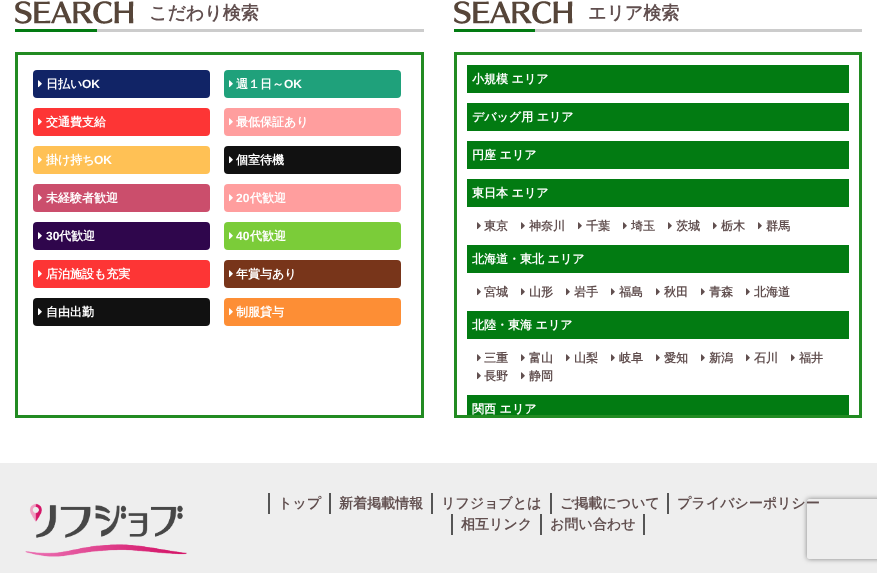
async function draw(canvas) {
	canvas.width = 877;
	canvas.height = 573;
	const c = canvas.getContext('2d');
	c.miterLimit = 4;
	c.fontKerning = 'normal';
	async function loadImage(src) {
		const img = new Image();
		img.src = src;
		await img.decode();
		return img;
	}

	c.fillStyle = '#fff';
	c.fillRect(0, 0, 877, 573);
	c.drawImage(await loadImage('img1.png'), 15, 1, 119, 23);
	c.font = 'bold 18px WenQuanYi Zen Hei';
	c.fillStyle = '#614f4f';
	c.fillText('こだわり検索', 149, 19);
	c.fillStyle = '#ccc';
	c.fillRect(97, 29, 327, 3);
	c.fillStyle = '#027b12';
	c.fillRect(15, 29, 82, 3);
	c.strokeStyle = '#228b22';
	c.lineWidth = 3;
	c.strokeRect(16.5, 53.5, 406, 363);
	c.fillStyle = '#112466';
	c.beginPath();
	c.roundRect(33, 70, 177, 28, 4);
	c.fill();
	c.drawImage(await loadImage('img2.png'), 38, 80, 4, 8);
	c.font = 'bold 12px WenQuanYi Zen Hei';
	c.fillStyle = '#fff';
	c.fillText('日払い', 46, 88);
	c.font = 'bold 12px Liberation Sans';
	c.fillText('OK', 82, 88);
	c.fillStyle = '#1fa17b';
	c.beginPath();
	c.roundRect(224, 70, 177, 28, 4);
	c.fill();
	c.drawImage(await loadImage('img3.png'), 229, 80, 4, 8);
	c.font = 'bold 12px WenQuanYi Zen Hei';
	c.fillStyle = '#fff';
	c.fillText('週１日～', 236, 88);
	c.font = 'bold 12px Liberation Sans';
	c.fillText('OK', 284, 88);
	c.fillStyle = '#fd3535';
	c.beginPath();
	c.roundRect(33, 108, 177, 28, 4);
	c.fill();
	c.drawImage(await loadImage('img4.png'), 38, 118, 4, 8);
	c.font = 'bold 12px WenQuanYi Zen Hei';
	c.fillStyle = '#fff';
	c.fillText('交通費支給', 46, 126);
	c.fillStyle = '#ff9e9e';
	c.beginPath();
	c.roundRect(224, 108, 177, 28, 4);
	c.fill();
	c.drawImage(await loadImage('img5.png'), 229, 118, 4, 8);
	c.fillStyle = '#fff';
	c.fillText('最低保証あり', 236, 126);
	c.fillStyle = '#ffc155';
	c.beginPath();
	c.roundRect(33, 146, 177, 28, 4);
	c.fill();
	c.drawImage(await loadImage('img6.png'), 38, 156, 4, 8);
	c.fillStyle = '#fff';
	c.fillText('掛け持ち', 46, 164);
	c.font = 'bold 12px Liberation Sans';
	c.fillText('OK', 94, 164);
	c.fillStyle = '#111';
	c.beginPath();
	c.roundRect(224, 146, 177, 28, 4);
	c.fill();
	c.drawImage(await loadImage('img7.png'), 229, 156, 4, 8);
	c.font = 'bold 12px WenQuanYi Zen Hei';
	c.fillStyle = '#fff';
	c.fillText('個室待機', 236, 164);
	c.fillStyle = '#cb4e6c';
	c.beginPath();
	c.roundRect(33, 184, 177, 28, 4);
	c.fill();
	c.drawImage(await loadImage('img8.png'), 38, 194, 4, 8);
	c.fillStyle = '#fff';
	c.fillText('未経験者歓迎', 46, 202);
	c.fillStyle = '#ff9e9e';
	c.beginPath();
	c.roundRect(224, 184, 177, 28, 4);
	c.fill();
	c.drawImage(await loadImage('img5.png'), 229, 194, 4, 8);
	c.font = 'bold 12px Liberation Sans';
	c.fillStyle = '#fff';
	c.fillText('20', 236, 202);
	c.font = 'bold 12px WenQuanYi Zen Hei';
	c.fillText('代歓迎', 250, 202);
	c.fillStyle = '#2f064c';
	c.beginPath();
	c.roundRect(33, 222, 177, 28, 4);
	c.fill();
	c.drawImage(await loadImage('img9.png'), 38, 232, 4, 8);
	c.font = 'bold 12px Liberation Sans';
	c.fillStyle = '#fff';
	c.fillText('30', 46, 240);
	c.font = 'bold 12px WenQuanYi Zen Hei';
	c.fillText('代歓迎', 59, 240);
	c.fillStyle = '#7bcc39';
	c.beginPath();
	c.roundRect(224, 222, 177, 28, 4);
	c.fill();
	c.drawImage(await loadImage('img10.png'), 229, 232, 4, 8);
	c.font = 'bold 12px Liberation Sans';
	c.fillStyle = '#fff';
	c.fillText('40', 236, 240);
	c.font = 'bold 12px WenQuanYi Zen Hei';
	c.fillText('代歓迎', 250, 240);
	c.fillStyle = '#fd3535';
	c.beginPath();
	c.roundRect(33, 260, 177, 28, 4);
	c.fill();
	c.drawImage(await loadImage('img4.png'), 38, 270, 4, 8);
	c.fillStyle = '#fff';
	c.fillText('店泊施設も充実', 46, 278);
	c.fillStyle = '#78351a';
	c.beginPath();
	c.roundRect(224, 260, 177, 28, 4);
	c.fill();
	c.drawImage(await loadImage('img11.png'), 229, 270, 4, 8);
	c.fillStyle = '#fff';
	c.fillText('年賞与あり', 236, 278);
	c.fillStyle = '#111';
	c.beginPath();
	c.roundRect(33, 298, 177, 28, 4);
	c.fill();
	c.drawImage(await loadImage('img7.png'), 38, 308, 4, 8);
	c.fillStyle = '#fff';
	c.fillText('自由出勤', 46, 316);
	c.fillStyle = '#fd8e35';
	c.beginPath();
	c.roundRect(224, 298, 177, 28, 4);
	c.fill();
	c.drawImage(await loadImage('img12.png'), 229, 308, 4, 8);
	c.fillStyle = '#fff';
	c.fillText('制服貸与', 236, 316);
	c.drawImage(await loadImage('img1.png'), 454, 1, 119, 23);
	c.font = 'bold 18px WenQuanYi Zen Hei';
	c.fillStyle = '#614f4f';
	c.fillText('エリア検索', 588, 19);
	c.fillStyle = '#ccc';
	c.fillRect(535, 29, 327, 3);
	c.fillStyle = '#027b12';
	c.fillRect(454, 29, 81, 3);
	c.strokeRect(455.5, 53.5, 405, 363);
	c.fillRect(467, 65, 382, 28);
	c.font = 'bold 12px WenQuanYi Zen Hei';
	c.fillStyle = '#fff';
	c.fillText('小規模 エリア', 472, 83);
	c.fillStyle = '#027b12';
	c.fillRect(467, 103, 382, 28);
	c.fillStyle = '#fff';
	c.fillText('デバッグ用 エリア', 472, 121);
	c.fillStyle = '#027b12';
	c.fillRect(467, 141, 382, 28);
	c.fillStyle = '#fff';
	c.fillText('円座 エリア', 472, 159);
	c.fillStyle = '#027b12';
	c.fillRect(467, 179, 382, 28);
	c.fillStyle = '#fff';
	c.fillText('東日本 エリア', 472, 197);
	c.drawImage(await loadImage('img13.png'), 477, 222, 4, 8);
	c.fillStyle = '#614f4f';
	c.fillText('東京', 484, 230);
	c.drawImage(await loadImage('img13.png'), 521, 222, 4, 8);
	c.fillText('神奈川', 529, 230);
	c.drawImage(await loadImage('img13.png'), 578, 222, 4, 8);
	c.fillText('千葉', 586, 230);
	c.drawImage(await loadImage('img13.png'), 623, 222, 4, 8);
	c.fillText('埼玉', 631, 230);
	c.drawImage(await loadImage('img13.png'), 668, 222, 4, 8);
	c.fillText('茨城', 676, 230);
	c.drawImage(await loadImage('img13.png'), 713, 222, 4, 8);
	c.fillText('栃木', 721, 230);
	c.drawImage(await loadImage('img13.png'), 758, 222, 4, 8);
	c.fillText('群馬', 766, 230);
	c.fillStyle = '#027b12';
	c.fillRect(467, 245, 382, 28);
	c.fillStyle = '#fff';
	c.fillText('北海道・東北 エリア', 472, 263);
	c.drawImage(await loadImage('img13.png'), 477, 288, 4, 8);
	c.fillStyle = '#614f4f';
	c.fillText('宮城', 484, 296);
	c.drawImage(await loadImage('img13.png'), 521, 288, 4, 8);
	c.fillText('山形', 529, 296);
	c.drawImage(await loadImage('img13.png'), 566, 288, 4, 8);
	c.fillText('岩手', 574, 296);
	c.drawImage(await loadImage('img13.png'), 611, 288, 4, 8);
	c.fillText('福島', 619, 296);
	c.drawImage(await loadImage('img13.png'), 656, 288, 4, 8);
	c.fillText('秋田', 664, 296);
	c.drawImage(await loadImage('img13.png'), 701, 288, 4, 8);
	c.fillText('青森', 709, 296);
	c.drawImage(await loadImage('img13.png'), 746, 288, 4, 8);
	c.fillText('北海道', 754, 296);
	c.fillStyle = '#027b12';
	c.fillRect(467, 311, 382, 28);
	c.fillStyle = '#fff';
	c.fillText('北陸・東海 エリア', 472, 329);
	c.drawImage(await loadImage('img13.png'), 477, 354, 4, 8);
	c.fillStyle = '#614f4f';
	c.fillText('三重', 484, 362);
	c.drawImage(await loadImage('img13.png'), 521, 354, 4, 8);
	c.fillText('富山', 529, 362);
	c.drawImage(await loadImage('img13.png'), 566, 354, 4, 8);
	c.fillText('山梨', 574, 362);
	c.drawImage(await loadImage('img13.png'), 611, 354, 4, 8);
	c.fillText('岐阜', 619, 362);
	c.drawImage(await loadImage('img13.png'), 656, 354, 4, 8);
	c.fillText('愛知', 664, 362);
	c.drawImage(await loadImage('img13.png'), 701, 354, 4, 8);
	c.fillText('新潟', 709, 362);
	c.drawImage(await loadImage('img13.png'), 746, 354, 4, 8);
	c.fillText('石川', 754, 362);
	c.drawImage(await loadImage('img13.png'), 791, 354, 4, 8);
	c.fillText('福井', 799, 362);
	c.drawImage(await loadImage('img13.png'), 477, 372, 4, 8);
	c.fillText('長野', 484, 380);
	c.drawImage(await loadImage('img13.png'), 521, 372, 4, 8);
	c.fillText('静岡', 529, 380);
	c.fillStyle = '#027b12';
	c.fillRect(467, 395, 382, 20);
	c.fillStyle = '#fff';
	c.fillText('関西 エリア', 472, 413);
	c.fillStyle = '#eee';
	c.fillRect(0, 463, 877, 110);
	c.drawImage(await loadImage('img14.png'), 25, 503, 162, 54);
	c.fillStyle = '#555';
	c.fillRect(268, 493, 2, 21);
	c.font = 'bold 14px WenQuanYi Zen Hei';
	c.fillStyle = '#614f4f';
	c.fillText('トップ', 278, 508);
	c.fillStyle = '#555';
	c.fillRect(329, 493, 2, 21);
	c.fillStyle = '#614f4f';
	c.fillText('新着掲載情報', 339, 508);
	c.fillStyle = '#555';
	c.fillRect(431, 493, 2, 21);
	c.fillStyle = '#614f4f';
	c.fillText('リフジョブとは', 441, 508);
	c.fillStyle = '#555';
	c.fillRect(550, 493, 2, 21);
	c.fillStyle = '#614f4f';
	c.fillText('ご掲載について', 560, 508);
	c.fillStyle = '#555';
	c.fillRect(667, 493, 2, 21);
	c.fillStyle = '#614f4f';
	c.fillText('プライバシーポリシー', 677, 508);
	c.fillStyle = '#555';
	c.fillRect(451, 514, 2, 21);
	c.fillStyle = '#614f4f';
	c.fillText('相互リンク', 461, 529);
	c.fillStyle = '#555';
	c.fillRect(643, 514, 2, 21);
	c.fillRect(540, 514, 2, 21);
	c.fillStyle = '#614f4f';
	c.fillText('お問い合わせ', 550, 529);
	c.save();
	c.beginPath();
	c.moveTo(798, 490);
	c.lineTo(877, 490);
	c.lineTo(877, 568);
	c.lineTo(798, 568);
	c.closePath();
	c.moveTo(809, 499);
	c.lineTo(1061, 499);
	c.bezierCurveTo(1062, 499, 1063, 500, 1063, 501);
	c.lineTo(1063, 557);
	c.bezierCurveTo(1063, 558, 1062, 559, 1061, 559);
	c.lineTo(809, 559);
	c.bezierCurveTo(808, 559, 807, 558, 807, 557);
	c.lineTo(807, 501);
	c.bezierCurveTo(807, 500, 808, 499, 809, 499);
	c.closePath();
	c.clip('evenodd');
	c.fillStyle = '#808080';
	c.filter = 'blur(2.5px)';
	c.beginPath();
	c.roundRect(807, 499, 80, 60, 2);
	c.fill();
	c.filter = 'none';
	c.restore();
}

draw(document.querySelector('canvas'));
